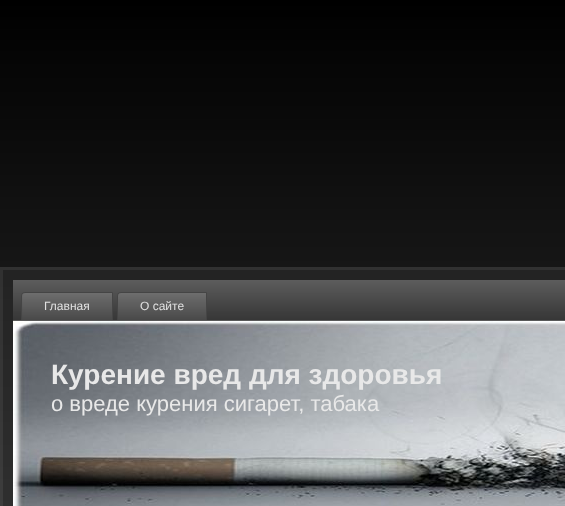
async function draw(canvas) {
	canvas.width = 565;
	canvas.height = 506;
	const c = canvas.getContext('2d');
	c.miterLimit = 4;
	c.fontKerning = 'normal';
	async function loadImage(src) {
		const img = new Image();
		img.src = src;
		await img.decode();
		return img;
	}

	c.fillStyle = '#fff';
	c.fillRect(0, 0, 565, 506);
	c.drawImage(await loadImage('img1.png'), 0, 0, 565, 506);
	c.drawImage(await loadImage('img2.png'), 0, 267, 17, 17);
	c.drawImage(await loadImage('img3.png'), 17, 267, 548, 13);
	c.drawImage(await loadImage('img4.png'), 0, 284, 13, 222);
	c.drawImage(await loadImage('img5.png'), 13, 280, 552, 41);
	c.drawImage(await loadImage('img6.png'), 21, 292, 88, 28);
	c.drawImage(await loadImage('img7.png'), 109, 292, 4, 28);
	c.font = '12px Liberation Sans';
	c.fillStyle = '#e0e0e0';
	c.fillText('Главная', 44, 310);
	c.drawImage(await loadImage('img8.png'), 117, 292, 86, 28);
	c.drawImage(await loadImage('img7.png'), 203, 292, 4, 28);
	c.fillText('О сайте', 140, 310);
	c.drawImage(await loadImage('img9.png'), 13, 321, 552, 185);
	c.font = 'bold 28px Liberation Sans';
	c.fillStyle = '#e8e8e8';
	c.fillText('Курение вред для здоровья', 51, 384);
	c.font = '22px Liberation Sans';
	c.fillText('о вреде курения сигарет, табака', 51, 411);
}

draw(document.querySelector('canvas'));
